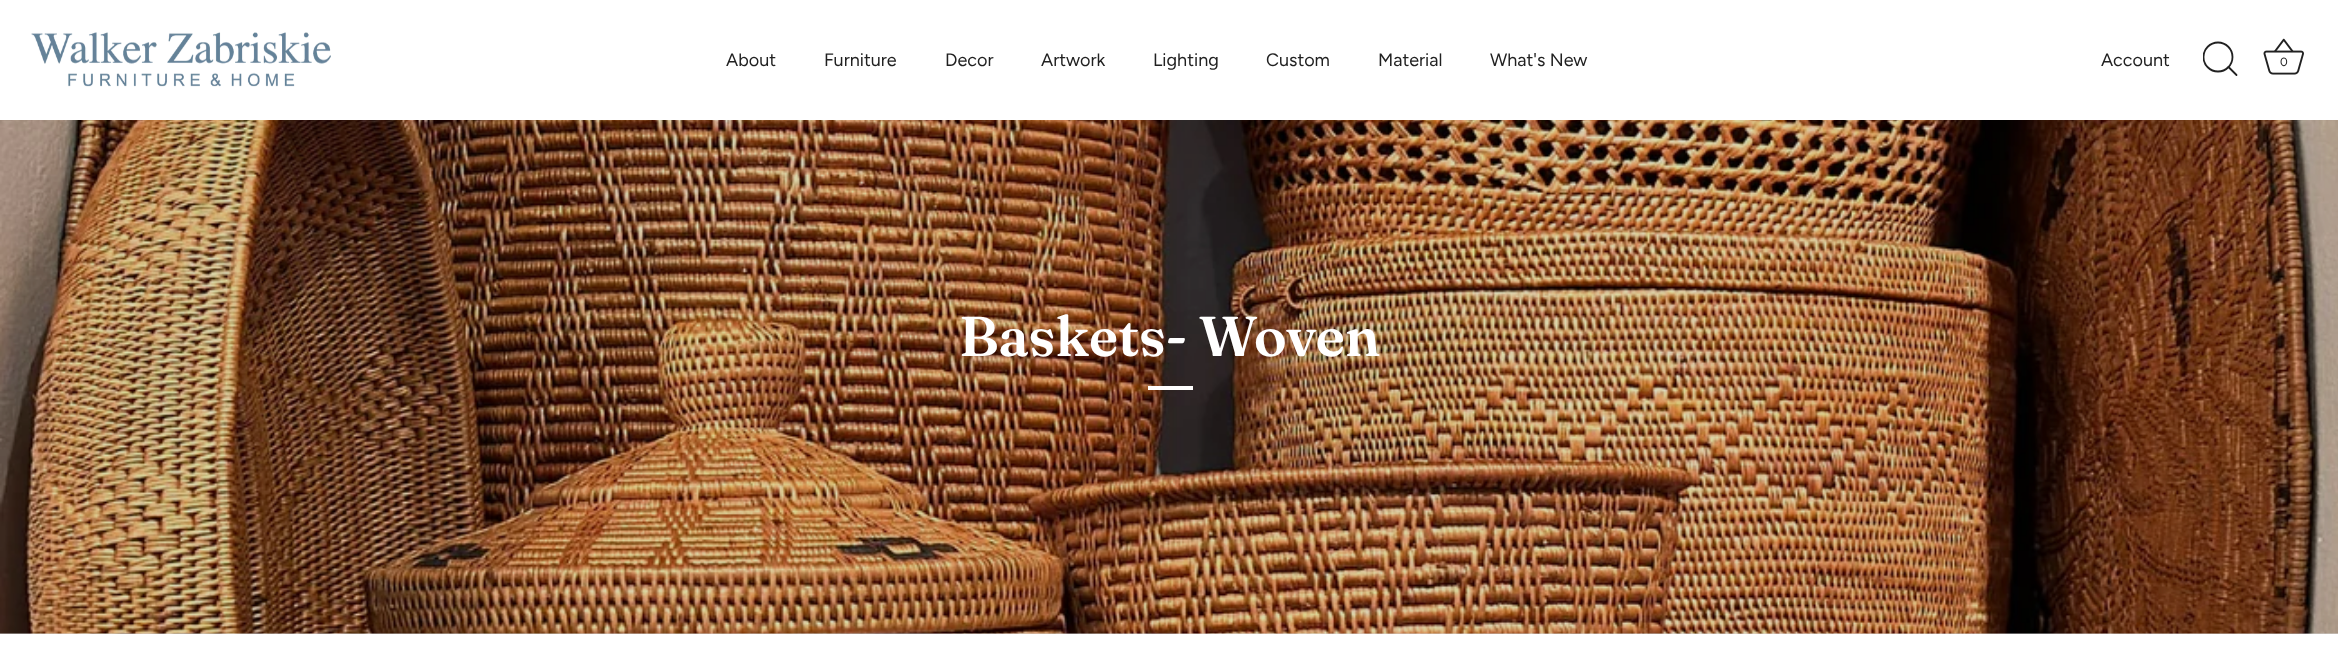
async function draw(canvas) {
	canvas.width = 2338;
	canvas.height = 656;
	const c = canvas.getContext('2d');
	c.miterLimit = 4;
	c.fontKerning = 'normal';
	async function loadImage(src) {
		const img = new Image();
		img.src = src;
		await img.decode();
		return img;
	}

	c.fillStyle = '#fff';
	c.fillRect(0, 0, 2338, 656);
	c.fillStyle = '#dbdbdb';
	c.fillRect(0, 633, 2338, 1);
	c.drawImage(await loadImage('img1.png'), 31, 32, 300, 55);
	c.font = '18px Figtree';
	c.fillStyle = '#212121';
	for (const [text, x, y] of [
		['About', 726, 66],
		['Furniture', 824, 66],
		['Decor', 945, 66],
		['Artwork', 1041, 66],
		['Lighting', 1153, 66],
		['Custom', 1266, 66],
		['Material', 1378, 66],
		['What\'s New', 1490, 66],
		['Account', 2101, 66],
	]) {
		c.fillText(text, x, y);
	}
	c.save();
	c.beginPath();
	c.rect(2203, 41, 36, 37);
	c.clip();
	c.beginPath();
	c.arc(2218, 57, 14.5, 0, 2 * Math.PI);
	c.strokeStyle = '#212121';
	c.lineWidth = 1.8;
	c.stroke();
	c.restore();
	c.beginPath();
	c.moveTo(2236.5, 75);
	c.lineTo(2228.5, 67);
	c.strokeStyle = '#212121';
	c.lineWidth = 1.8;
	c.lineCap = 'round';
	c.lineJoin = 'round';
	c.stroke();
	c.drawImage(await loadImage('img2.png'), 2263, 38, 41, 37);
	c.font = '12px Figtree';
	c.fillText('0', 2280, 66);
	c.drawImage(await loadImage('img3.png'), 0, 120, 2338, 514);
	c.font = '600 56.25px Fraunces';
	c.fillStyle = '#fff';
	c.fillText('Baskets- Woven', 959, 356);
	c.fillRect(1148, 386, 45, 4);
}

draw(document.querySelector('canvas'));
